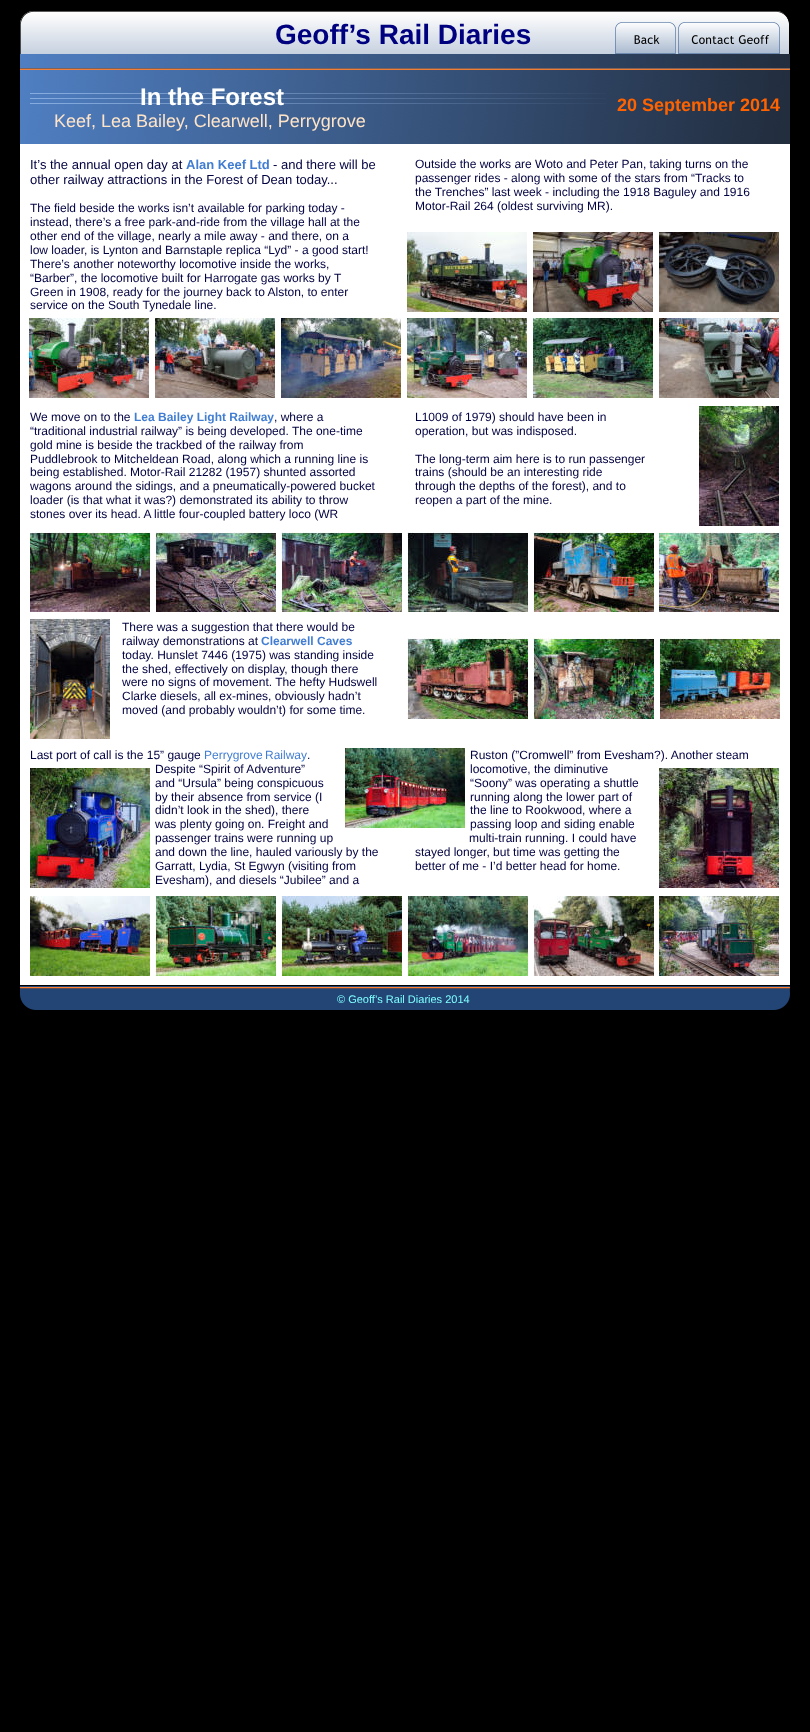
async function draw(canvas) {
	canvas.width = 810;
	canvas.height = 1732;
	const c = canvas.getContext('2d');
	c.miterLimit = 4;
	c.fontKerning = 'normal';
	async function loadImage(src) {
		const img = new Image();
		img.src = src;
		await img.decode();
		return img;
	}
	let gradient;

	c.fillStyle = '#000';
	c.fillRect(0, 0, 810, 1732);
	c.drawImage(await loadImage('img1.png'), 20, 11, 770, 43);
	c.font = 'bold 28px Liberation Sans';
	c.fillStyle = '#00017f';
	c.fillText('Geoff’s Rail Diaries', 275, 44);
	c.drawImage(await loadImage('img2.png'), 615, 22, 61, 32);
	c.drawImage(await loadImage('img3.png'), 678, 22, 102, 32);
	gradient = c.createLinearGradient(-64, 41, 790, 146);
	gradient.addColorStop(0, '#5488d1');
	gradient.addColorStop(0.99, '#222d3e');
	c.fillStyle = gradient;
	c.fillRect(20, 54, 770, 90);
	c.fillStyle = '#415f80';
	c.fillRect(20, 68, 770, 1);
	c.drawImage(await loadImage('img4.png'), 20, 68, 770, 2);
	c.drawImage(await loadImage('img5.png'), 30, 93, 576, 11);
	c.font = 'bold 24px Liberation Sans';
	c.fillStyle = '#fff';
	c.fillText('In the Forest', 140, 105);
	c.font = 'bold 18px Liberation Sans';
	c.fillStyle = '#ff6300';
	c.fillText('20 September 2014', 617, 111);
	c.font = '18px Liberation Sans';
	c.fillStyle = '#ffe4c8';
	c.fillText('Keef, Lea Bailey, Clearwell, Perrygrove', 54, 127);
	c.fillStyle = '#fff';
	c.fillRect(20, 144, 770, 841);
	c.font = '13px Liberation Sans';
	c.fillStyle = '#000140';
	c.fillText('It’s the annual open day at', 30, 169);
	c.font = 'bold 13px Liberation Sans';
	c.fillStyle = '#417dd2';
	c.fillText('Alan Keef Ltd', 186, 169);
	c.font = '13px Liberation Sans';
	c.fillStyle = '#000140';
	c.fillText('- and there will be', 273, 169);
	c.fillText('other railway attractions in the Forest of Dean today...', 30, 184);
	c.font = '12px Liberation Sans';
	for (const [text, x, y] of [
		['The field beside the works isn’t available for parking today -', 30, 212],
		['instead, there’s a free park-and-ride from the village hall at the', 30, 226],
		['other end of the village, nearly a mile away - and there, on a', 30, 240],
		['low loader, is Lynton and Barnstaple replica “Lyd” - a good start!', 30, 254],
		['There’s another noteworthy locomotive inside the works,', 30, 268],
		['“Barber”, the locomotive built for Harrogate gas works by T', 30, 282],
		['Green in 1908, ready for the journey back to Alston, to enter', 30, 296],
		['service on the South Tynedale line.', 30, 309],
		['Outside the works are Woto and Peter Pan, taking turns on the', 415, 168],
		['passenger rides - along with some of the stars from “Tracks to', 415, 182],
		['the Trenches” last week - including the 1918 Baguley and 1916', 415, 196],
		['Motor-Rail 264 (oldest surviving MR).', 415, 210],
	]) {
		c.fillText(text, x, y);
	}
	c.drawImage(await loadImage('img6.png'), 407, 232, 120, 80);
	c.drawImage(await loadImage('img7.png'), 533, 232, 120, 80);
	c.drawImage(await loadImage('img8.png'), 659, 232, 120, 80);
	c.drawImage(await loadImage('img9.png'), 29, 318, 120, 80);
	c.drawImage(await loadImage('img10.png'), 155, 318, 120, 80);
	c.drawImage(await loadImage('img11.png'), 281, 318, 120, 80);
	c.drawImage(await loadImage('img12.png'), 407, 318, 120, 80);
	c.drawImage(await loadImage('img13.png'), 533, 318, 120, 80);
	c.drawImage(await loadImage('img14.png'), 659, 318, 120, 80);
	c.fillText('We move on to the', 30, 421);
	c.font = 'bold 12px Liberation Sans';
	c.fillStyle = '#417dd2';
	c.fillText('Lea Bailey Light Railway', 134, 421);
	c.font = '12px Liberation Sans';
	c.fillStyle = '#000140';
	for (const [text, x, y] of [
		[', where a', 274, 421],
		['“traditional industrial railway” is being developed. The one-time', 30, 435],
		['gold mine is beside the trackbed of the railway from', 30, 449],
		['Puddlebrook to Mitcheldean Road, along which a running line is', 30, 463],
		['being established. Motor-Rail 21282 (1957) shunted assorted', 30, 476],
		['wagons around the sidings, and a pneumatically-powered bucket', 30, 490],
		['loader (is that what it was?) demonstrated its ability to throw', 30, 504],
		['stones over its head. A little four-coupled battery loco (WR', 30, 518],
		['L1009 of 1979) should have been in', 415, 421],
		['operation, but was indisposed.', 415, 435],
		['The long-term aim here is to run passenger', 415, 463],
		['trains (should be an interesting ride', 415, 476],
		['through the depths of the forest), and to', 415, 490],
		['reopen a part of the mine.', 415, 504],
	]) {
		c.fillText(text, x, y);
	}
	c.drawImage(await loadImage('img15.png'), 699, 406, 80, 120);
	c.drawImage(await loadImage('img16.png'), 30, 532, 120, 80);
	c.drawImage(await loadImage('img17.png'), 155, 532, 121, 80);
	c.drawImage(await loadImage('img18.png'), 281, 532, 121, 80);
	c.drawImage(await loadImage('img19.png'), 407, 532, 121, 80);
	c.drawImage(await loadImage('img20.png'), 533, 532, 121, 80);
	c.drawImage(await loadImage('img21.png'), 659, 532, 120, 80);
	c.drawImage(await loadImage('img22.png'), 30, 618, 80, 121);
	c.fillText('There was a suggestion that there would be', 122, 631);
	c.fillText('railway demonstrations at', 122, 645);
	c.font = 'bold 12px Liberation Sans';
	c.fillStyle = '#417dd2';
	c.fillText('Clearwell Caves', 261, 645);
	c.font = '12px Liberation Sans';
	c.fillStyle = '#000140';
	for (const [text, x, y] of [
		['today. Hunslet 7446 (1975) was standing inside', 122, 659],
		['the shed, effectively on display, though there', 122, 673],
		['were no signs of movement. The hefty Hudswell', 122, 686],
		['Clarke diesels, all ex-mines, obviously hadn’t', 122, 700],
		['moved (and probably wouldn’t) for some time.', 122, 714],
	]) {
		c.fillText(text, x, y);
	}
	c.drawImage(await loadImage('img23.png'), 407, 638, 121, 81);
	c.drawImage(await loadImage('img24.png'), 533, 638, 121, 81);
	c.drawImage(await loadImage('img25.png'), 660, 638, 120, 81);
	c.fillText('Last port of call is the 15” gauge', 30, 759);
	c.wordSpacing = '-1px';
	c.fillStyle = '#417dd2';
	c.fillText('Perrygrove Railway', 204, 759);
	c.wordSpacing = '0px';
	c.fillStyle = '#000140';
	for (const [text, x, y] of [
		['.', 307, 759],
		['Despite “Spirit of Adventure”', 155, 773],
		['and “Ursula” being conspicuous', 155, 787],
		['by their absence from service (I', 155, 801],
		['didn’t look in the shed), there', 155, 814],
		['was plenty going on. Freight and', 155, 828],
		['passenger trains were running up', 155, 842],
		['and down the line, hauled variously by the', 155, 856],
		['Garratt, Lydia, St Egwyn (visiting from', 155, 870],
		['Evesham), and diesels “Jubilee” and a', 155, 884],
	]) {
		c.fillText(text, x, y);
	}
	c.drawImage(await loadImage('img26.png'), 345, 748, 120, 80);
	for (const [text, x, y] of [
		['Ruston (”Cromwell” from Evesham?). Another steam', 470, 759],
		['locomotive, the diminutive', 470, 773],
		['“Soony” was operating a shuttle', 470, 787],
		['running along the lower part of', 470, 801],
		['the line to Rookwood, where a', 470, 814],
		['passing loop and siding enable', 470, 828],
		['multi-train running. I could have', 469, 842],
		['stayed longer, but time was getting the', 415, 856],
		['better of me - I’d better head for home.', 415, 870],
	]) {
		c.fillText(text, x, y);
	}
	c.drawImage(await loadImage('img27.png'), 30, 768, 120, 120);
	c.drawImage(await loadImage('img28.png'), 659, 768, 120, 120);
	c.drawImage(await loadImage('img29.png'), 30, 896, 120, 80);
	c.drawImage(await loadImage('img30.png'), 155, 896, 121, 80);
	c.drawImage(await loadImage('img31.png'), 281, 896, 121, 80);
	c.drawImage(await loadImage('img32.png'), 407, 896, 121, 80);
	c.drawImage(await loadImage('img33.png'), 533, 896, 121, 80);
	c.drawImage(await loadImage('img34.png'), 659, 896, 120, 80);
	c.drawImage(await loadImage('img35.png'), 20, 986, 770, 24);
	c.font = '11px Liberation Sans';
	c.fillStyle = '#7fffff';
	c.fillText('© Geoff’s Rail Diaries 2014', 337, 1003);
}

draw(document.querySelector('canvas'));
